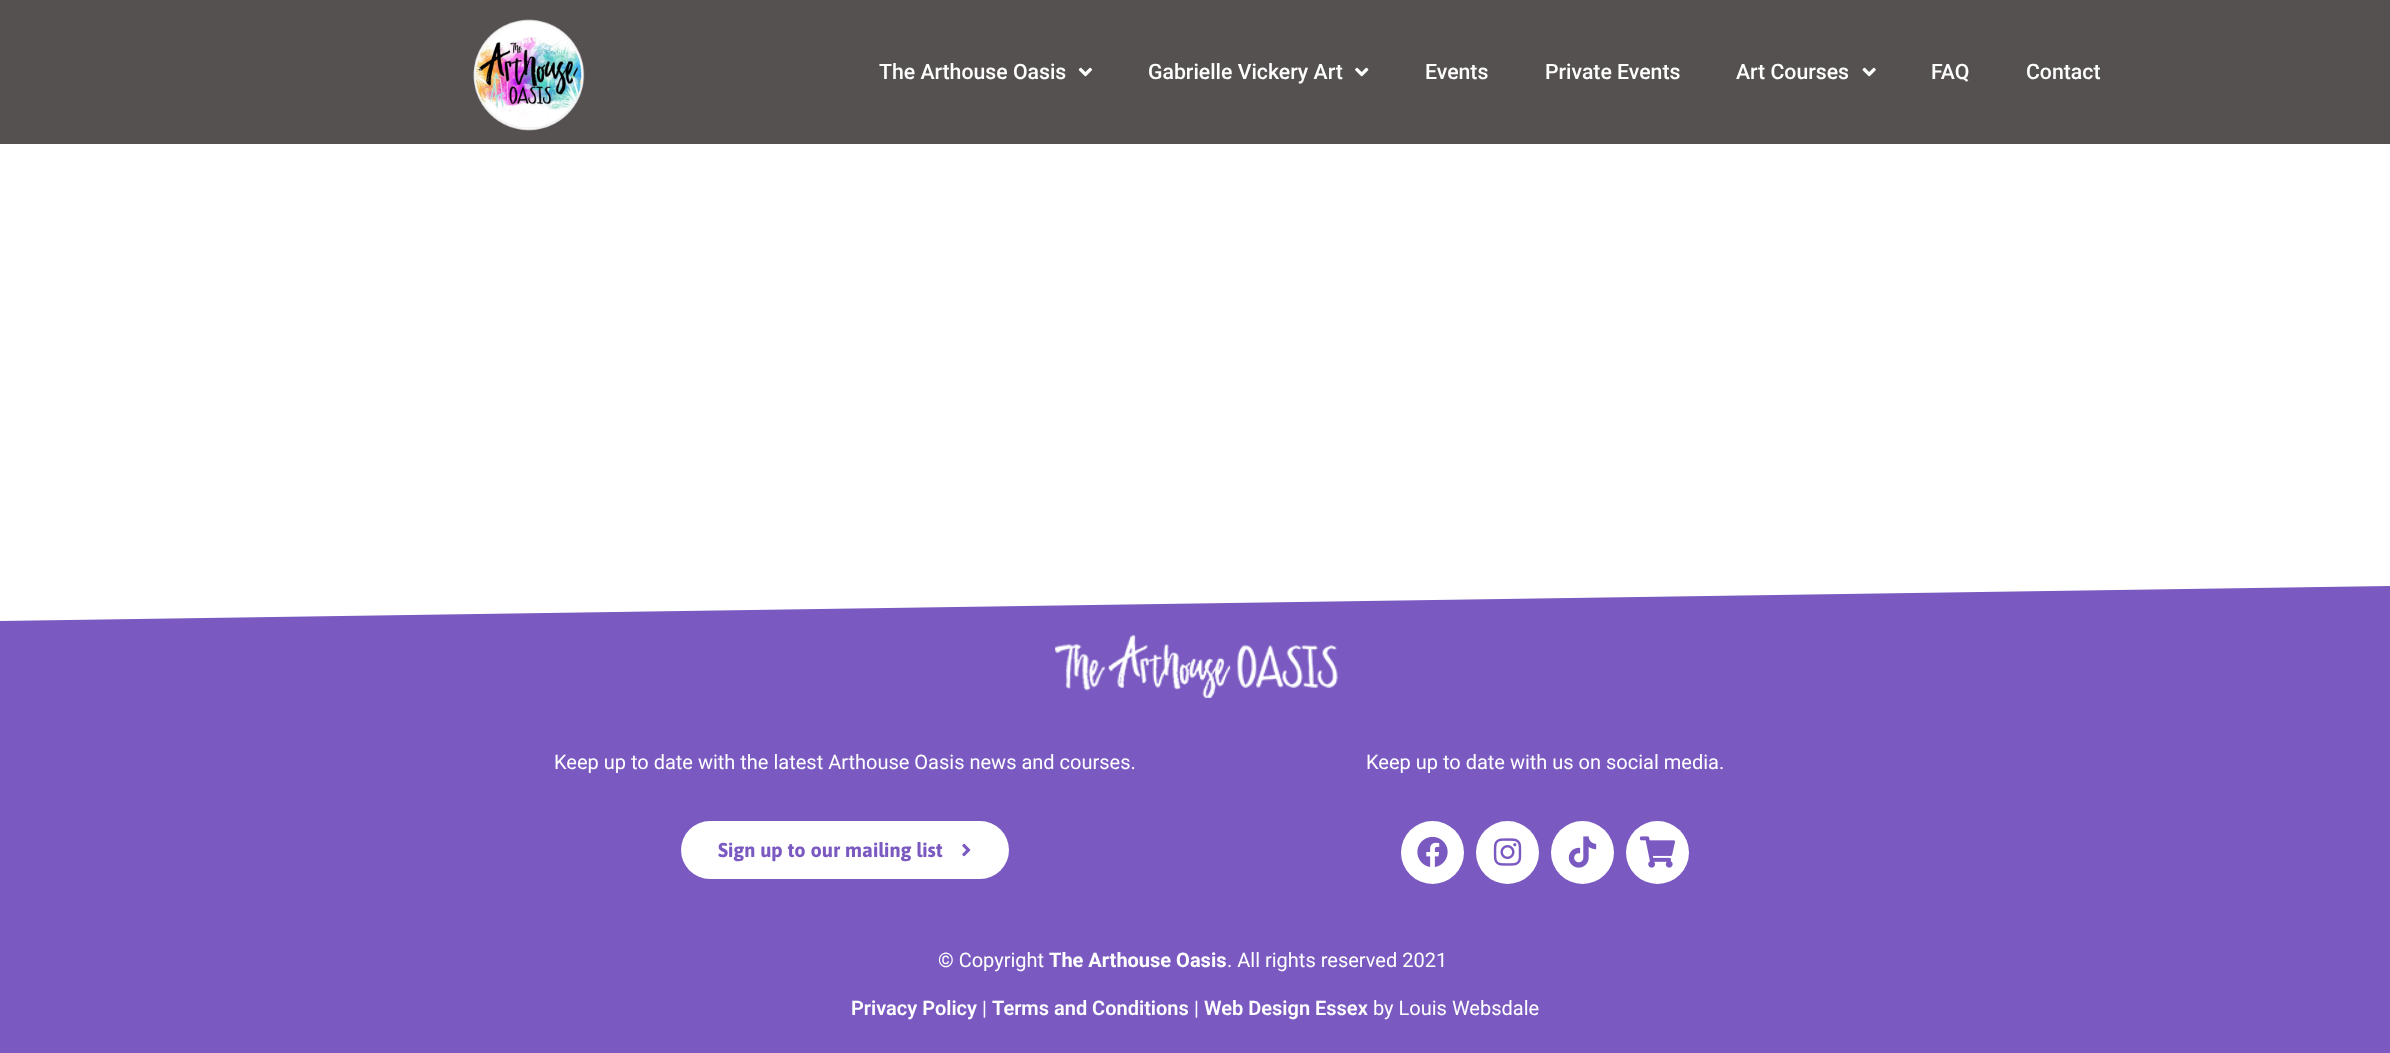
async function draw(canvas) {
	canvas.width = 2390;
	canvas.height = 1053;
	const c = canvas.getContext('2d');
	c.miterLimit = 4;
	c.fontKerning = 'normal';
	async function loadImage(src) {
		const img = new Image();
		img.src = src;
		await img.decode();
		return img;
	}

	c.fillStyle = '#fff';
	c.fillRect(0, 0, 2390, 1053);
	c.fillStyle = '#555150';
	c.fillRect(0, 0, 2390, 144);
	c.drawImage(await loadImage('img1.png'), 473, 19, 112, 112);
	c.font = '500 21.25px Roboto';
	c.fillStyle = '#fff';
	c.fillText('The Arthouse Oasis', 879, 79);
	c.drawImage(await loadImage('img2.png'), 1078, 67, 15, 10);
	c.fillText('Gabrielle Vickery Art', 1148, 79);
	c.drawImage(await loadImage('img3.png'), 1355, 67, 14, 10);
	for (const [text, x, y] of [
		['Events', 1425, 79],
		['Private Events', 1545, 79],
		['Art Courses', 1736, 79],
	]) {
		c.fillText(text, x, y);
	}
	c.drawImage(await loadImage('img4.png'), 1862, 67, 14, 10);
	c.fillText('FAQ', 1931, 79);
	c.fillText('Contact', 2026, 79);
	c.fillStyle = '#7a59c1';
	c.fillRect(0, 586, 2390, 467);
	c.fillStyle = '#fff';
	c.beginPath();
	c.moveTo(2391, 586);
	c.lineTo(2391, 584);
	c.lineTo(-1, 584);
	c.lineTo(-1, 621);
	c.closePath();
	c.fill();
	c.drawImage(await loadImage('img5.png'), 1054, 635, 284, 63);
	c.font = '20px Roboto';
	c.fillText('Keep up to date with the latest Arthouse Oasis news and courses.', 554, 769);
	c.beginPath();
	c.roundRect(681, 821, 328, 58, 29);
	c.fill();
	c.font = 'bold 20px Asap';
	c.fillStyle = '#7a59c1';
	c.fillText('Sign up to our mailing list', 718, 857);
	c.drawImage(await loadImage('img6.png'), 962, 843, 9, 14);
	c.font = '20px Roboto';
	c.fillStyle = '#fff';
	c.fillText('Keep up to date with us on social media.', 1366, 769);
	c.beginPath();
	c.arc(1432.5, 852.5, 31.5, 0, 2 * Math.PI);
	c.fill();
	c.drawImage(await loadImage('img7.png'), 1417, 836, 31, 31);
	c.beginPath();
	c.arc(1507.5, 852.5, 31.5, 0, 2 * Math.PI);
	c.fill();
	c.drawImage(await loadImage('img8.png'), 1493, 838, 29, 28);
	c.beginPath();
	c.arc(1582.5, 852.5, 31.5, 0, 2 * Math.PI);
	c.fill();
	c.drawImage(await loadImage('img9.png'), 1568, 836, 29, 32);
	c.beginPath();
	c.arc(1657.5, 852.5, 31.5, 0, 2 * Math.PI);
	c.fill();
	c.drawImage(await loadImage('img10.png'), 1639, 836, 36, 32);
	c.fillText('© Copyright', 938, 967);
	c.font = 'bold 20px Roboto';
	c.fillText('The Arthouse Oasis', 1049, 967);
	c.font = '20px Roboto';
	c.fillText('. All rights reserved 2021', 1227, 967);
	c.font = '600 20px Roboto';
	c.fillText('Privacy Policy', 851, 1015);
	c.font = '20px Roboto';
	c.fillText('|', 982, 1015);
	c.font = '600 20px Roboto';
	c.fillText('Terms and Conditions', 992, 1015);
	c.font = '20px Roboto';
	c.fillText('|', 1194, 1015);
	c.font = '600 20px Roboto';
	c.fillText('Web Design Essex', 1204, 1015);
	c.font = '20px Roboto';
	c.fillText('by Louis Websdale', 1373, 1015);
}

draw(document.querySelector('canvas'));
